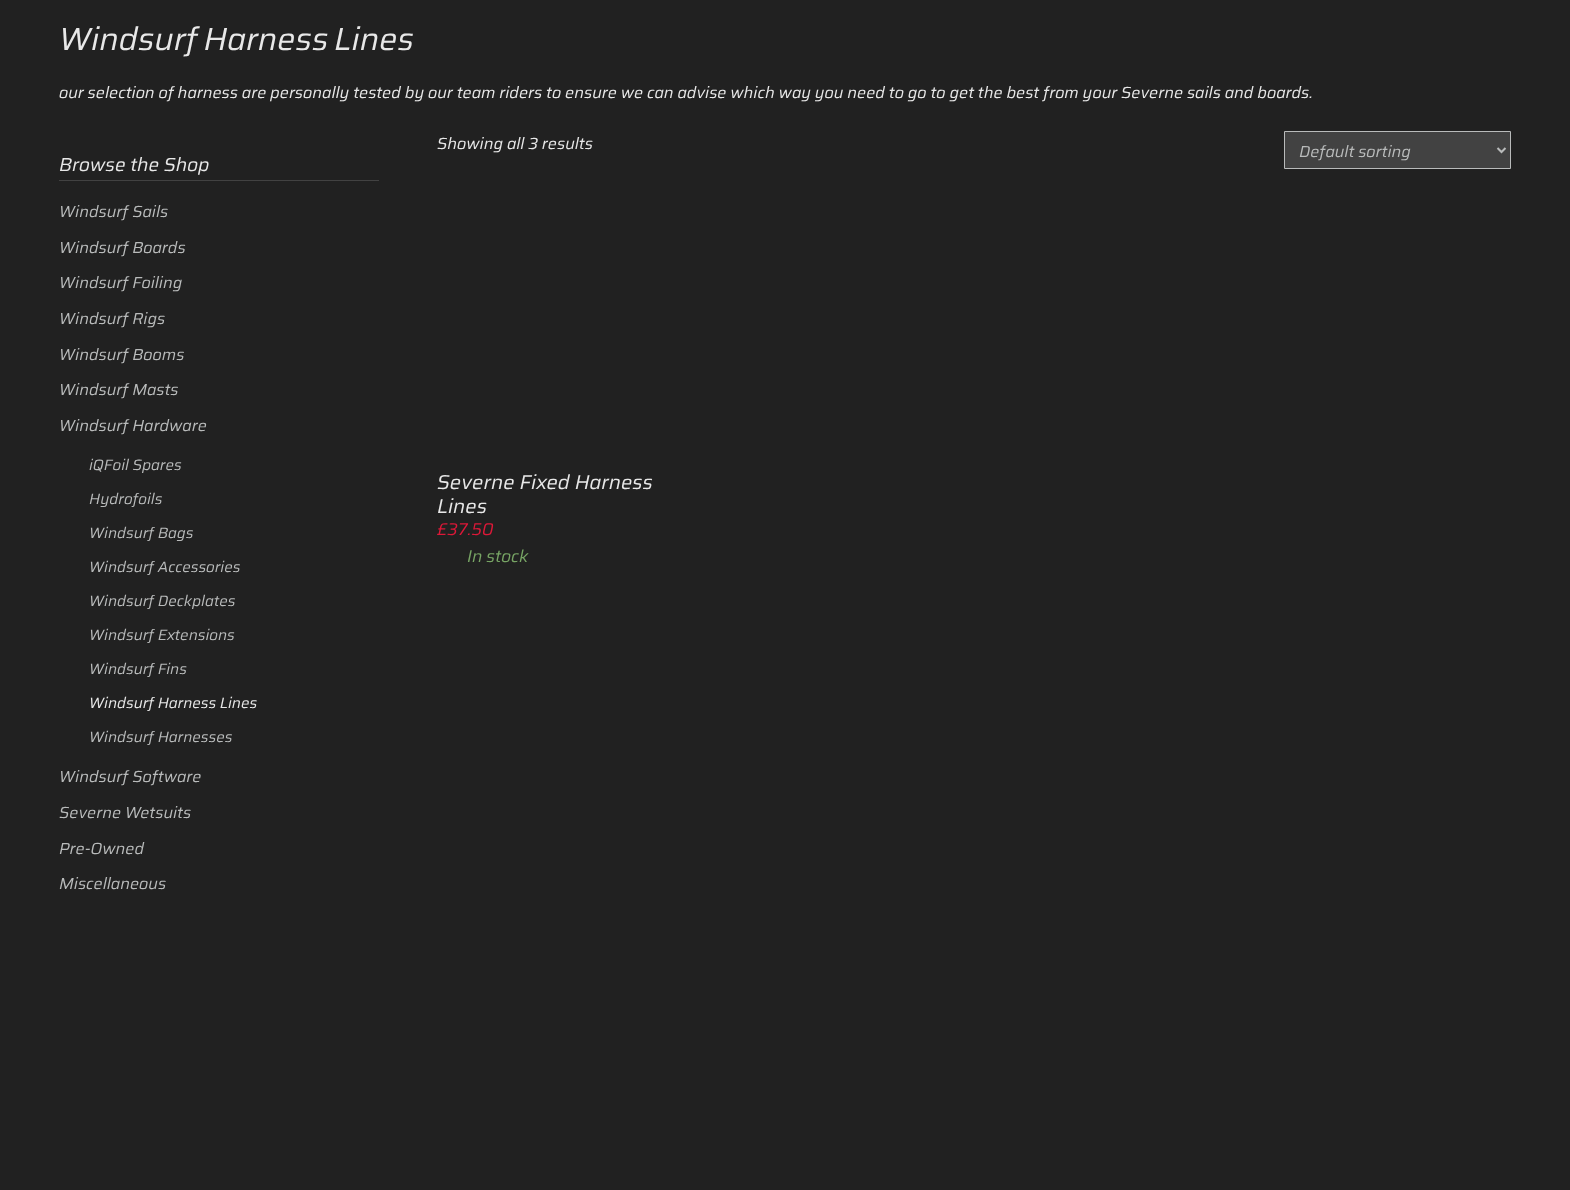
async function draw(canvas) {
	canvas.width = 1570;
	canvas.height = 1190;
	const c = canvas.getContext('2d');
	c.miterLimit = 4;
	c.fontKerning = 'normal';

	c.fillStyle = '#212121';
	c.fillRect(0, 0, 1570, 1190);
	c.wordSpacing = '-2px';
	c.font = 'italic 32px Saira';
	c.fillStyle = '#e8e8e8';
	c.fillText('Windsurf Harness Lines', 59, 50);
	c.wordSpacing = '0px';
	c.font = 'italic 16px Saira';
	c.fillText('our selection of harness are personally tested by our team riders to ensure we can advise which way you need to go to get the best from your Severne sails and boards.', 59, 98);
	c.fillStyle = '#424242';
	c.fillRect(59, 180, 320, 1);
	c.font = 'italic 18.75px Saira';
	c.fillStyle = '#e8e8e8';
	c.fillText('Browse the Shop', 59, 171);
	c.font = 'italic 16px Saira';
	c.fillStyle = '#b9bbbb';
	for (const [text, x, y] of [
		['Windsurf Sails', 59, 217],
		['Windsurf Boards', 59, 253],
		['Windsurf Foiling', 59, 288],
		['Windsurf Rigs', 59, 324],
		['Windsurf Booms', 59, 360],
		['Windsurf Masts', 59, 395],
		['Windsurf Hardware', 59, 431],
	]) {
		c.fillText(text, x, y);
	}
	c.font = 'italic 15px Saira';
	for (const [text, x, y] of [
		['iQFoil Spares', 89, 470],
		['Hydrofoils', 89, 504],
		['Windsurf Bags', 89, 538],
		['Windsurf Accessories', 89, 572],
		['Windsurf Deckplates', 89, 606],
		['Windsurf Extensions', 89, 640],
		['Windsurf Fins', 89, 674],
	]) {
		c.fillText(text, x, y);
	}
	c.fillStyle = '#e8e8e8';
	c.fillText('Windsurf Harness Lines', 89, 708);
	c.fillStyle = '#b9bbbb';
	c.fillText('Windsurf Harnesses', 89, 742);
	c.font = 'italic 16px Saira';
	for (const [text, x, y] of [
		['Windsurf Software', 59, 782],
		['Severne Wetsuits', 59, 818],
		['Pre-Owned', 59, 854],
		['Miscellaneous', 59, 889],
	]) {
		c.fillText(text, x, y);
	}
	c.fillStyle = '#e8e8e8';
	c.fillText('Showing all 3 results', 437, 149);
	c.fillStyle = '#424242';
	c.beginPath();
	c.rect(1284.5, 131.5, 226, 37);
	c.fill();
	c.strokeStyle = '#b9bbbb';
	c.stroke();
	c.beginPath();
	c.moveTo(1497.5, 148);
	c.lineTo(1501.5, 152);
	c.lineTo(1505.5, 148);
	c.lineWidth = 2;
	c.stroke();
	c.fillStyle = '#b9bbbb';
	c.fillText('Default sorting', 1299, 157);
	c.font = 'italic 20px Saira';
	c.fillStyle = '#e8e8e8';
	c.fillText('Severne Fixed Harness', 437, 489);
	c.fillText('Lines', 437, 513);
	c.font = 'italic 17px Saira';
	c.fillStyle = '#dd1838';
	c.fillText('£37.50', 437, 535);
	c.fillStyle = '#77a464';
	c.fillText('In stock', 467, 562);
}

draw(document.querySelector('canvas'));
